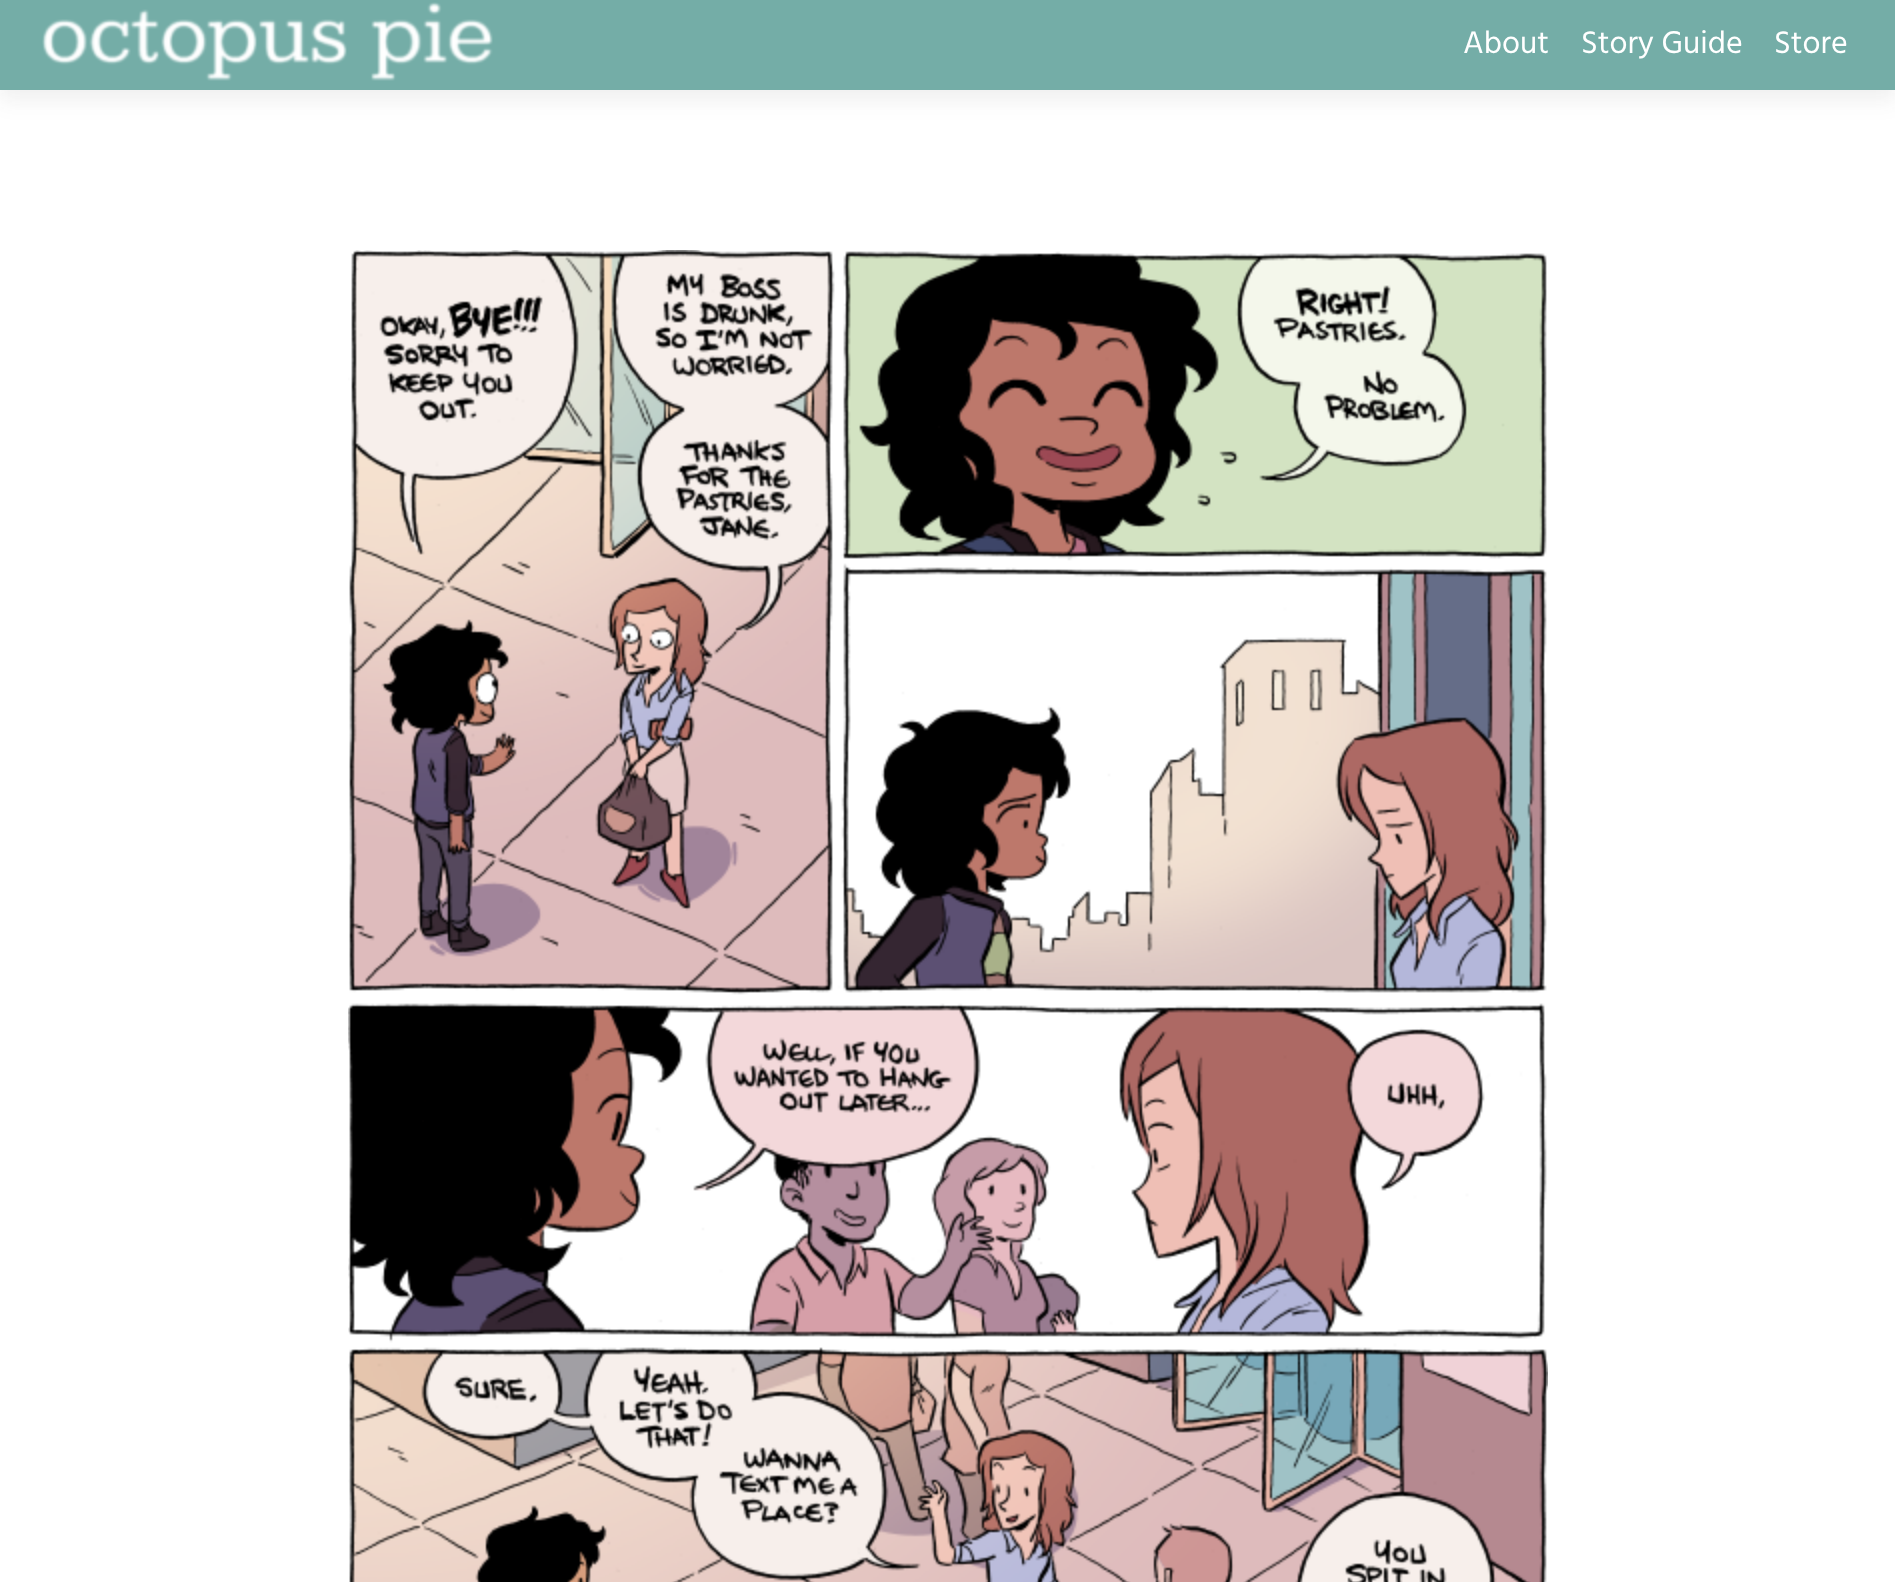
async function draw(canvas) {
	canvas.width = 1895;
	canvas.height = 1582;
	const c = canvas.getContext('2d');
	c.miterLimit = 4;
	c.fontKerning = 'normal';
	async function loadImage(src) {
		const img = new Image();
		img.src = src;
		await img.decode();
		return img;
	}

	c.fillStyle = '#fff';
	c.fillRect(0, 0, 1895, 1582);
	c.fillStyle = '#32323214';
	c.filter = 'blur(11px)';
	c.beginPath();
	c.rect(0, 10, 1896, 90);
	c.fill();
	c.filter = 'none';
	c.fillStyle = '#74ada7';
	c.fillRect(0, 0, 1895, 90);
	c.drawImage(await loadImage('img1.png'), 42, 2, 451, 79);
	c.font = '32px Hind';
	c.fillStyle = '#fff';
	for (const [text, x, y] of [
		['About', 1463, 53],
		['Story Guide', 1581, 53],
		['Store', 1774, 53],
	]) {
		c.fillText(text, x, y);
	}
	c.drawImage(await loadImage('img2.png'), 348, 250, 1200, 1332);
}

draw(document.querySelector('canvas'));
